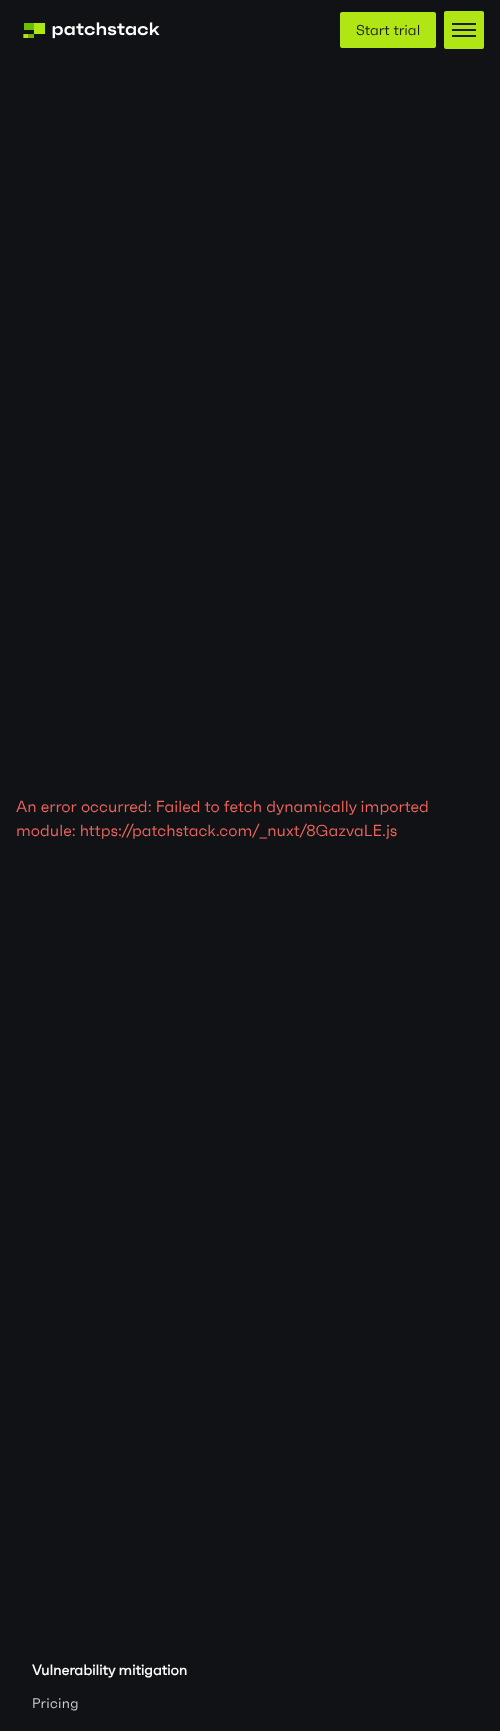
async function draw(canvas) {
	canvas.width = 500;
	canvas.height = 1731;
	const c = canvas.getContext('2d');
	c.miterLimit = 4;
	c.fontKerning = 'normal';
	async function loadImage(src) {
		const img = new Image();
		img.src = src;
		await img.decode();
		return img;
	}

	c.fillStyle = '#111216';
	c.fillRect(0, 0, 500, 1731);
	c.drawImage(await loadImage('img1.png'), 23, 22, 137, 17);
	c.fillStyle = '#afe614';
	c.beginPath();
	c.roundRect(340, 12, 96, 36, 2);
	c.fill();
	c.font = '14.4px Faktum';
	c.fillStyle = '#1c1e22';
	c.fillText('Start trial', 356, 35);
	c.fillStyle = '#afe614';
	c.beginPath();
	c.roundRect(444, 11, 40, 38, 2);
	c.fill();
	for (const [x, y, w, h, color] of [
		[452, 23, 24, 2, '#1c1e22'],
		[452, 29, 24, 2, '#1c1e22'],
		[452, 35, 24, 2, '#1c1e22'],
	]) {
		c.fillStyle = color;
		c.fillRect(x, y, w, h);
	}
	c.font = '16px Faktum';
	c.fillStyle = '#ed645e';
	c.fillText('An error occurred: Failed to fetch dynamically imported', 16, 812);
	c.fillText('module: https://patchstack.com/_nuxt/8GazvaLE.js', 16, 836);
	c.font = 'bold 14.4px Faktum';
	c.fillStyle = '#fff';
	c.fillText('Vulnerability mitigation', 32, 1675);
	c.letterSpacing = '0.25px';
	c.font = '14px Faktum';
	c.fillStyle = '#cfd0d0';
	c.fillText('Pricing', 32, 1708);
}

draw(document.querySelector('canvas'));
